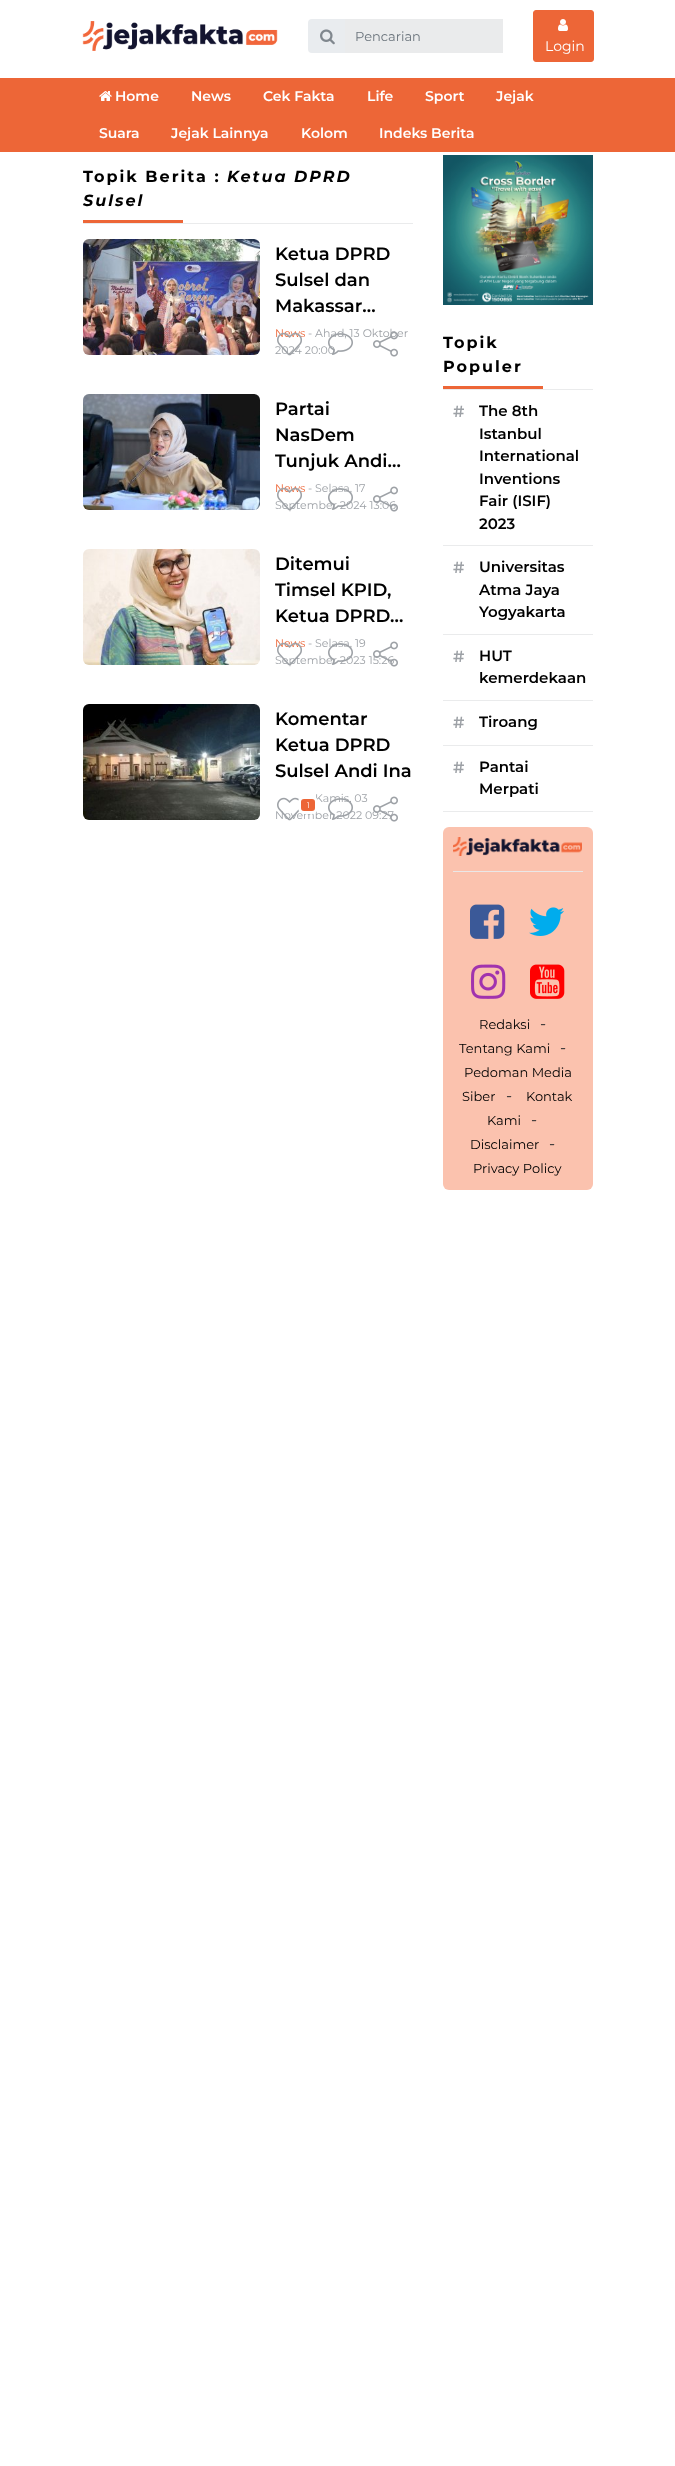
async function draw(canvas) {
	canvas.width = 675;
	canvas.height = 2466;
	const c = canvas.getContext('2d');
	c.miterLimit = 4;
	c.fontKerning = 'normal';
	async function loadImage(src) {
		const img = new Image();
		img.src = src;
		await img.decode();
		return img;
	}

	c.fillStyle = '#fff';
	c.fillRect(0, 0, 675, 2466);
	c.drawImage(await loadImage('img1.png'), 82, 21, 196, 30);
	c.fillStyle = '#e9ecef';
	c.beginPath();
	c.roundRect(308, 19, 38, 34, [4, 0, 0, 4]);
	c.fill();
	c.drawImage(await loadImage('img2.png'), 320, 29, 15, 16);
	c.fillStyle = '#eaebec';
	c.fillRect(345, 19, 158, 34);
	c.font = '13px Montserrat';
	c.fillStyle = '#6c757d';
	c.fillText('Pencarian', 355, 41);
	c.fillStyle = '#ed6637';
	c.beginPath();
	c.roundRect(533.5, 10.5, 60, 51, 2.5);
	c.fill();
	c.strokeStyle = '#ed6637';
	c.stroke();
	c.drawImage(await loadImage('img3.png'), 558, 19, 10, 12);
	c.font = '14px Montserrat';
	c.fillStyle = '#fff';
	c.fillText('Login', 545, 51);
	c.fillStyle = '#ed6637';
	c.fillRect(0, 78, 675, 74);
	c.drawImage(await loadImage('img4.png'), 99, 91, 13, 10);
	c.font = '600 14px Montserrat';
	c.fillStyle = '#fff';
	for (const [text, x, y] of [
		['Home', 115, 101],
		['News', 191, 101],
		['Cek Fakta', 263, 101],
		['Life', 367, 101],
		['Sport', 425, 101],
		['Jejak', 496, 101],
		['Suara', 99, 138],
		['Jejak Lainnya', 171, 138],
		['Kolom', 301, 138],
		['Indeks Berita', 379, 138],
	]) {
		c.fillText(text, x, y);
	}
	c.fillStyle = '#eaebec';
	c.fillRect(83, 223, 330, 1);
	c.save();
	c.beginPath();
	c.roundRect(83, 155, 330, 689, 6);
	c.clip();
	c.letterSpacing = '2px';
	c.font = 'bold 16px Montserrat';
	c.fillStyle = '#000';
	c.fillText('Topik Berita :', 83, 182);
	c.restore();
	c.letterSpacing = '2px';
	c.font = 'italic bold 16px Montserrat';
	c.fillStyle = '#000';
	c.fillText('Ketua DPRD', 227, 182);
	c.fillText('Sulsel', 83, 206);
	c.fillStyle = '#ed6637';
	c.fillRect(83, 220, 100, 3);
	c.drawImage(await loadImage('img5.png'), 83, 239, 177, 116);
	c.letterSpacing = '0px';
	c.font = '600 18px Montserrat';
	c.fillStyle = '#000';
	for (const [text, x, y] of [
		['Ketua DPRD', 275, 260],
		['Sulsel dan', 275, 286],
		['Makassar…', 275, 312],
	]) {
		c.fillText(text, x, y);
	}
	c.font = '11px Montserrat';
	c.fillStyle = '#ed6637';
	c.fillText('News', 275, 337);
	c.fillStyle = '#9da1a6';
	c.fillText('- Ahad, 13 Oktober', 308, 337);
	c.fillText('2024 20:00', 275, 354);
	c.drawImage(await loadImage('img6.png'), 277, 332, 25, 24);
	c.drawImage(await loadImage('img7.png'), 328, 333, 25, 22);
	c.drawImage(await loadImage('img8.png'), 373, 331, 25, 26);
	c.drawImage(await loadImage('img9.png'), 83, 394, 177, 116);
	c.font = '600 18px Montserrat';
	c.fillStyle = '#000';
	c.fillText('Partai', 275, 415);
	c.fillText('NasDem', 275, 441);
	c.save();
	c.beginPath();
	c.rect(275, 394, 138, 78);
	c.clip();
	c.fillText('Tunjuk Andi…', 275, 467);
	c.restore();
	c.font = '11px Montserrat';
	c.fillStyle = '#ed6637';
	c.fillText('News', 275, 492);
	c.fillStyle = '#9da1a6';
	c.fillText('- Selasa, 17', 308, 492);
	c.fillText('September 2024 13:06', 275, 509);
	c.drawImage(await loadImage('img10.png'), 277, 487, 25, 24);
	c.drawImage(await loadImage('img11.png'), 328, 488, 25, 22);
	c.drawImage(await loadImage('img12.png'), 373, 486, 25, 26);
	c.drawImage(await loadImage('img13.png'), 83, 549, 177, 116);
	c.font = '600 18px Montserrat';
	c.fillStyle = '#000';
	c.fillText('Ditemui', 275, 570);
	c.save();
	c.beginPath();
	c.rect(275, 549, 138, 78);
	c.clip();
	c.fillText('Timsel KPID,', 275, 596);
	c.restore();
	c.fillText('Ketua DPRD…', 275, 622);
	c.font = '11px Montserrat';
	c.fillStyle = '#ed6637';
	c.fillText('News', 275, 647);
	c.fillStyle = '#9da1a6';
	c.fillText('- Selasa, 19', 308, 647);
	c.fillText('September 2023 15:26', 275, 664);
	c.drawImage(await loadImage('img10.png'), 277, 642, 25, 24);
	c.drawImage(await loadImage('img11.png'), 328, 643, 25, 22);
	c.drawImage(await loadImage('img14.png'), 373, 641, 25, 26);
	c.drawImage(await loadImage('img15.png'), 83, 704, 177, 116);
	c.font = '600 18px Montserrat';
	c.fillStyle = '#000';
	for (const [text, x, y] of [
		['Komentar', 275, 725],
		['Ketua DPRD', 275, 751],
		['Sulsel Andi Ina', 275, 777],
	]) {
		c.fillText(text, x, y);
	}
	c.font = '11px Montserrat';
	c.fillStyle = '#9da1a6';
	c.fillText('Kamis, 03', 315, 802);
	c.fillText('November 2022 09:27', 275, 819);
	c.drawImage(await loadImage('img16.png'), 277, 797, 22, 24);
	c.fillStyle = '#ed6637';
	c.beginPath();
	c.roundRect(299.5, 797.5, 17, 15, 4.5);
	c.fill();
	c.strokeStyle = '#fff';
	c.lineWidth = 3;
	c.stroke();
	c.font = '8px Montserrat';
	c.fillStyle = '#fff';
	c.fillText('1', 307, 808);
	c.drawImage(await loadImage('img17.png'), 328, 798, 25, 22);
	c.drawImage(await loadImage('img18.png'), 373, 796, 25, 26);
	c.drawImage(await loadImage('img19.png'), 443, 155, 150, 150);
	c.fillStyle = '#eaebec';
	c.fillRect(443, 389, 150, 1);
	c.letterSpacing = '2px';
	c.font = 'bold 16px Montserrat';
	c.fillStyle = '#000';
	c.fillText('Topik', 443, 348);
	c.fillText('Populer', 443, 372);
	c.fillStyle = '#ed6637';
	c.fillRect(443, 386, 100, 3);
	c.fillStyle = '#eaebec';
	c.fillRect(443, 545, 150, 1);
	c.letterSpacing = '0px';
	c.font = '600 16px Montserrat';
	c.fillStyle = '#9da1a6';
	c.fillText('#', 453, 417);
	c.font = '600 15px Montserrat';
	c.fillStyle = '#000';
	for (const [text, x, y] of [
		['The 8th', 479, 416],
		['Istanbul', 479, 439],
		['International', 479, 461],
		['Inventions', 479, 484],
		['Fair (ISIF)', 479, 506],
		['2023', 479, 529],
	]) {
		c.fillText(text, x, y);
	}
	c.fillStyle = '#eaebec';
	c.fillRect(443, 634, 150, 1);
	c.font = '600 16px Montserrat';
	c.fillStyle = '#9da1a6';
	c.fillText('#', 453, 573);
	c.font = '600 15px Montserrat';
	c.fillStyle = '#000';
	for (const [text, x, y] of [
		['Universitas', 479, 572],
		['Atma Jaya', 479, 595],
		['Yogyakarta', 479, 617],
	]) {
		c.fillText(text, x, y);
	}
	c.fillStyle = '#eaebec';
	c.fillRect(443, 700, 150, 1);
	c.font = '600 16px Montserrat';
	c.fillStyle = '#9da1a6';
	c.fillText('#', 453, 662);
	c.font = '600 15px Montserrat';
	c.fillStyle = '#000';
	c.fillText('HUT', 479, 661);
	c.fillText('kemerdekaan', 479, 683);
	c.fillStyle = '#eaebec';
	c.fillRect(443, 745, 150, 1);
	c.font = '600 16px Montserrat';
	c.fillStyle = '#9da1a6';
	c.fillText('#', 453, 728);
	c.font = '600 15px Montserrat';
	c.fillStyle = '#000';
	c.fillText('Tiroang', 479, 727);
	c.fillStyle = '#eaebec';
	c.fillRect(443, 811, 150, 1);
	c.font = '600 16px Montserrat';
	c.fillStyle = '#9da1a6';
	c.fillText('#', 453, 773);
	c.font = '600 15px Montserrat';
	c.fillStyle = '#000';
	c.fillText('Pantai', 479, 772);
	c.fillText('Merpati', 479, 794);
	c.fillStyle = '#fbc2ae';
	c.beginPath();
	c.roundRect(443, 827, 150, 363, 6);
	c.fill();
	c.drawImage(await loadImage('img20.png'), 453, 837, 129, 19);
	c.fillStyle = '#eae7e7';
	c.fillRect(453, 871, 130, 1);
	c.drawImage(await loadImage('img21.png'), 470, 904, 35, 35);
	c.drawImage(await loadImage('img22.png'), 529, 907, 35, 29);
	c.drawImage(await loadImage('img23.png'), 471, 964, 35, 35);
	c.drawImage(await loadImage('img24.png'), 530, 964, 35, 35);
	c.font = '13px Montserrat';
	c.fillStyle = '#000';
	c.fillText('Redaksi', 479, 1029);
	c.font = '16px Montserrat';
	c.fillStyle = '#212529';
	c.fillText('-', 540, 1029);
	c.font = '13px Montserrat';
	c.fillStyle = '#000';
	c.fillText('Tentang Kami', 459, 1053);
	c.font = '16px Montserrat';
	c.fillStyle = '#212529';
	c.fillText('-', 560, 1053);
	c.font = '13px Montserrat';
	c.fillStyle = '#000';
	c.fillText('Pedoman Media', 464, 1077);
	c.fillText('Siber', 462, 1101);
	c.font = '16px Montserrat';
	c.fillStyle = '#212529';
	c.fillText('-', 506, 1101);
	c.font = '13px Montserrat';
	c.fillStyle = '#000';
	c.fillText('Kontak', 526, 1101);
	c.fillText('Kami', 487, 1125);
	c.font = '16px Montserrat';
	c.fillStyle = '#212529';
	c.fillText('-', 531, 1125);
	c.font = '13px Montserrat';
	c.fillStyle = '#000';
	c.fillText('Disclaimer', 470, 1149);
	c.font = '16px Montserrat';
	c.fillStyle = '#212529';
	c.fillText('-', 549, 1149);
	c.font = '13px Montserrat';
	c.fillStyle = '#000';
	c.fillText('Privacy Policy', 473, 1173);
}

draw(document.querySelector('canvas'));
